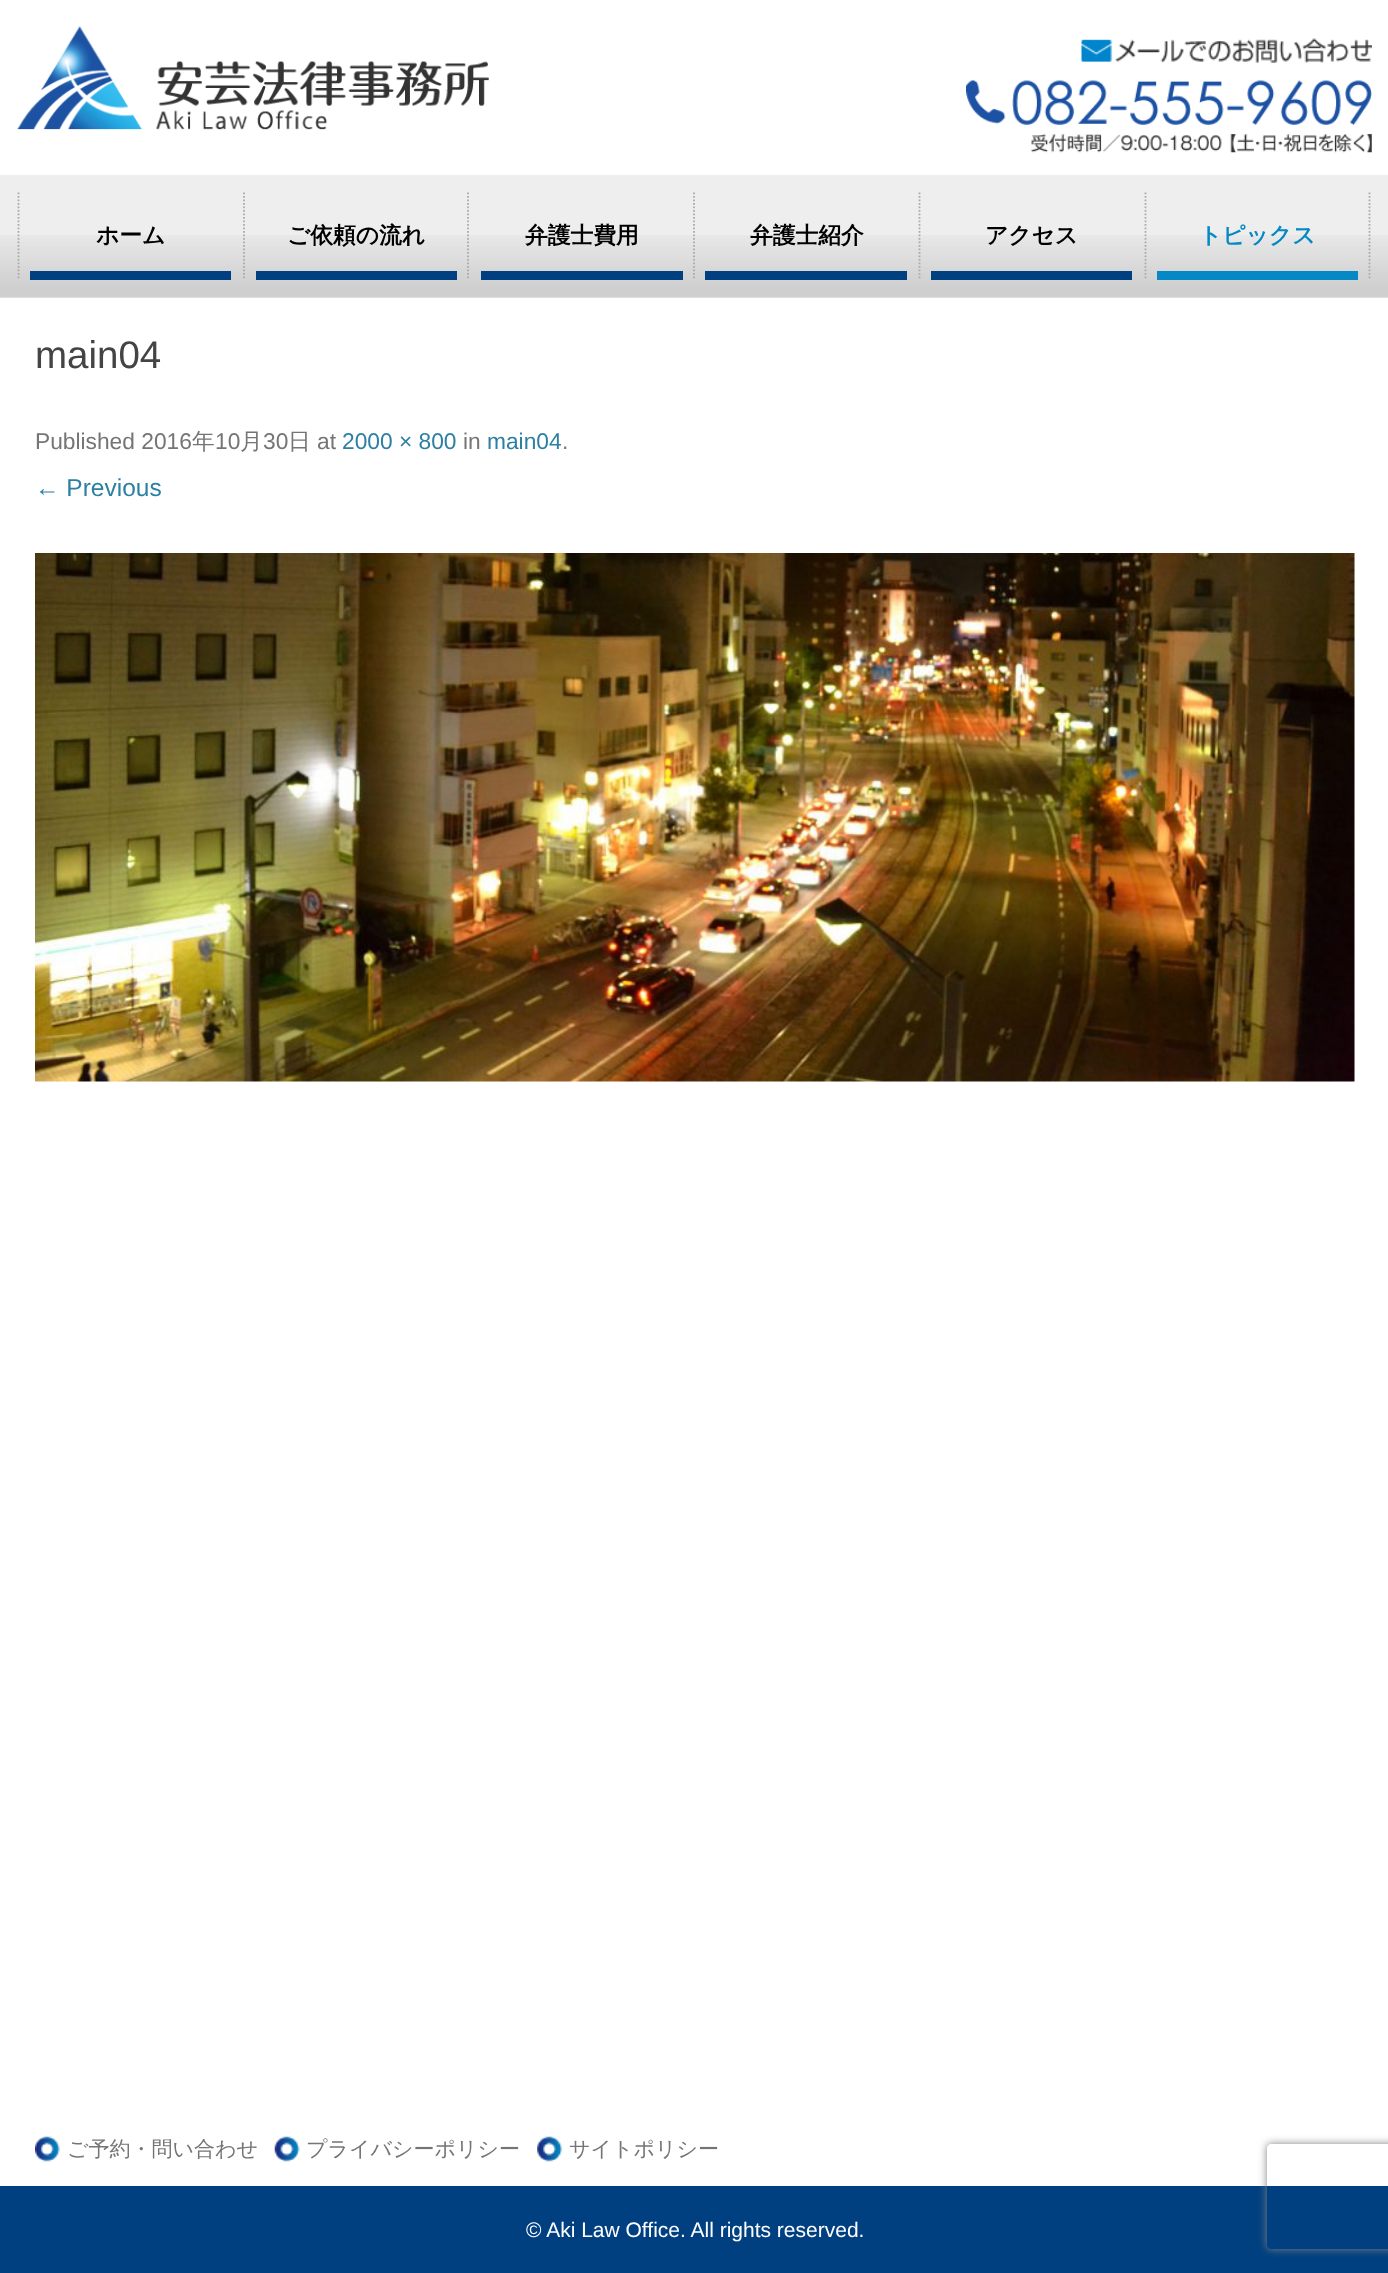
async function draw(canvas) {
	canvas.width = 1388;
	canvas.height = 2273;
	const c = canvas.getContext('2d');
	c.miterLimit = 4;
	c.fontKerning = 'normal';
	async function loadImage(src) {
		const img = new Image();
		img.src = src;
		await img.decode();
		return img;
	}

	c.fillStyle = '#fff';
	c.fillRect(0, 0, 1388, 2273);
	c.drawImage(await loadImage('img1.png'), 17, 26, 472, 104);
	c.drawImage(await loadImage('img2.png'), 1081, 38, 291, 25);
	c.drawImage(await loadImage('img3.png'), 966, 80, 406, 73);
	c.fillStyle = '#eee';
	c.fillRect(0, 175, 1388, 123);
	c.drawImage(await loadImage('img4.png'), 0, 235, 1388, 63);
	c.beginPath();
	c.moveTo(244, 192.5);
	c.lineTo(244, 280);
	c.strokeStyle = '#aaa';
	c.lineWidth = 1.8;
	c.setLineDash([1.75, 1.75]);
	c.stroke();
	c.beginPath();
	c.moveTo(18.5, 192.5);
	c.lineTo(18.5, 280);
	c.stroke();
	c.fillStyle = '#004080';
	c.fillRect(30, 271, 201, 9);
	c.font = 'bold 22.75px WenQuanYi Zen Hei';
	c.fillStyle = '#000';
	c.fillText('ホーム', 96, 243);
	c.beginPath();
	c.moveTo(468, 192.5);
	c.lineTo(468, 280);
	c.stroke();
	c.fillStyle = '#004080';
	c.fillRect(256, 271, 201, 9);
	c.fillStyle = '#000';
	c.fillText('ご依頼の流れ', 287, 243);
	c.beginPath();
	c.moveTo(694, 192.5);
	c.lineTo(694, 280);
	c.stroke();
	c.fillStyle = '#004080';
	c.fillRect(481, 271, 202, 9);
	c.fillStyle = '#000';
	c.fillText('弁護士費用', 525, 243);
	c.beginPath();
	c.moveTo(919.5, 192.5);
	c.lineTo(919.5, 280);
	c.stroke();
	c.fillStyle = '#004080';
	c.fillRect(705, 271, 202, 9);
	c.fillStyle = '#000';
	c.fillText('弁護士紹介', 750, 243);
	c.beginPath();
	c.moveTo(1145.5, 192.5);
	c.lineTo(1145.5, 280);
	c.stroke();
	c.fillStyle = '#004080';
	c.fillRect(931, 271, 201, 9);
	c.fillStyle = '#000';
	c.fillText('アクセス', 985, 243);
	c.beginPath();
	c.moveTo(1369.5, 192.5);
	c.lineTo(1369.5, 280);
	c.stroke();
	c.fillStyle = '#0589c4';
	c.fillRect(1157, 271, 201, 9);
	c.fillText('トピックス', 1199, 243);
	c.font = '38.5px Liberation Sans';
	c.fillStyle = '#444';
	c.fillText('main04', 35, 368);
	c.font = '22.75px Liberation Sans';
	c.fillStyle = '#757575';
	c.fillText('Published 2016', 35, 449);
	c.font = '500 22.75px WenQuanYi Zen Hei';
	c.fillText('年', 192, 449);
	c.font = '22.75px Liberation Sans';
	c.fillText('10', 215, 449);
	c.font = '500 22.75px WenQuanYi Zen Hei';
	c.fillText('月', 240, 449);
	c.font = '22.75px Liberation Sans';
	c.fillText('30', 263, 449);
	c.font = '500 22.75px WenQuanYi Zen Hei';
	c.fillText('日', 288, 449);
	c.font = '22.75px Liberation Sans';
	c.fillText('at', 317, 449);
	c.fillStyle = '#2c80a4';
	c.fillText('2000 × 800', 342, 449);
	c.fillStyle = '#757575';
	c.fillText('in', 463, 449);
	c.fillStyle = '#2c80a4';
	c.fillText('main04', 487, 449);
	c.fillStyle = '#757575';
	c.fillText('.', 562, 449);
	c.font = '24.5px Liberation Sans';
	c.fillStyle = '#2c80a4';
	c.fillText('← Previous', 35, 496);
	c.drawImage(await loadImage('img5.png'), 35, 553, 1320, 529);
	c.drawImage(await loadImage('img6.png'), 35, 2136, 25, 26);
	c.font = '500 21px WenQuanYi Zen Hei';
	c.fillStyle = '#757575';
	c.fillText('ご予約・問い合わせ', 67, 2156);
	c.drawImage(await loadImage('img7.png'), 274, 2136, 26, 26);
	c.fillText('プライバシーポリシー', 306, 2156);
	c.drawImage(await loadImage('img8.png'), 537, 2136, 25, 26);
	c.fillText('サイトポリシー', 569, 2156);
	c.fillStyle = '#004080';
	c.fillRect(0, 2186, 1388, 87);
	c.font = '21px Liberation Sans';
	c.fillStyle = '#fff';
	c.fillText('© Aki Law Office. All rights reserved.', 526, 2237);
	c.save();
	c.beginPath();
	c.moveTo(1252, 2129);
	c.lineTo(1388, 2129);
	c.lineTo(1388, 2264);
	c.lineTo(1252, 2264);
	c.closePath();
	c.moveTo(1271, 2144);
	c.lineTo(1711, 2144);
	c.bezierCurveTo(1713, 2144, 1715, 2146, 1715, 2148);
	c.lineTo(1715, 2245);
	c.bezierCurveTo(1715, 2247, 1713, 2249, 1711, 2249);
	c.lineTo(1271, 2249);
	c.bezierCurveTo(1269, 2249, 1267, 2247, 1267, 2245);
	c.lineTo(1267, 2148);
	c.bezierCurveTo(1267, 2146, 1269, 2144, 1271, 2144);
	c.closePath();
	c.clip('evenodd');
	c.fillStyle = '#808080';
	c.filter = 'blur(4.5px)';
	c.beginPath();
	c.roundRect(1267, 2144, 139, 105, 4);
	c.fill();
	c.filter = 'none';
	c.restore();
}

draw(document.querySelector('canvas'));
